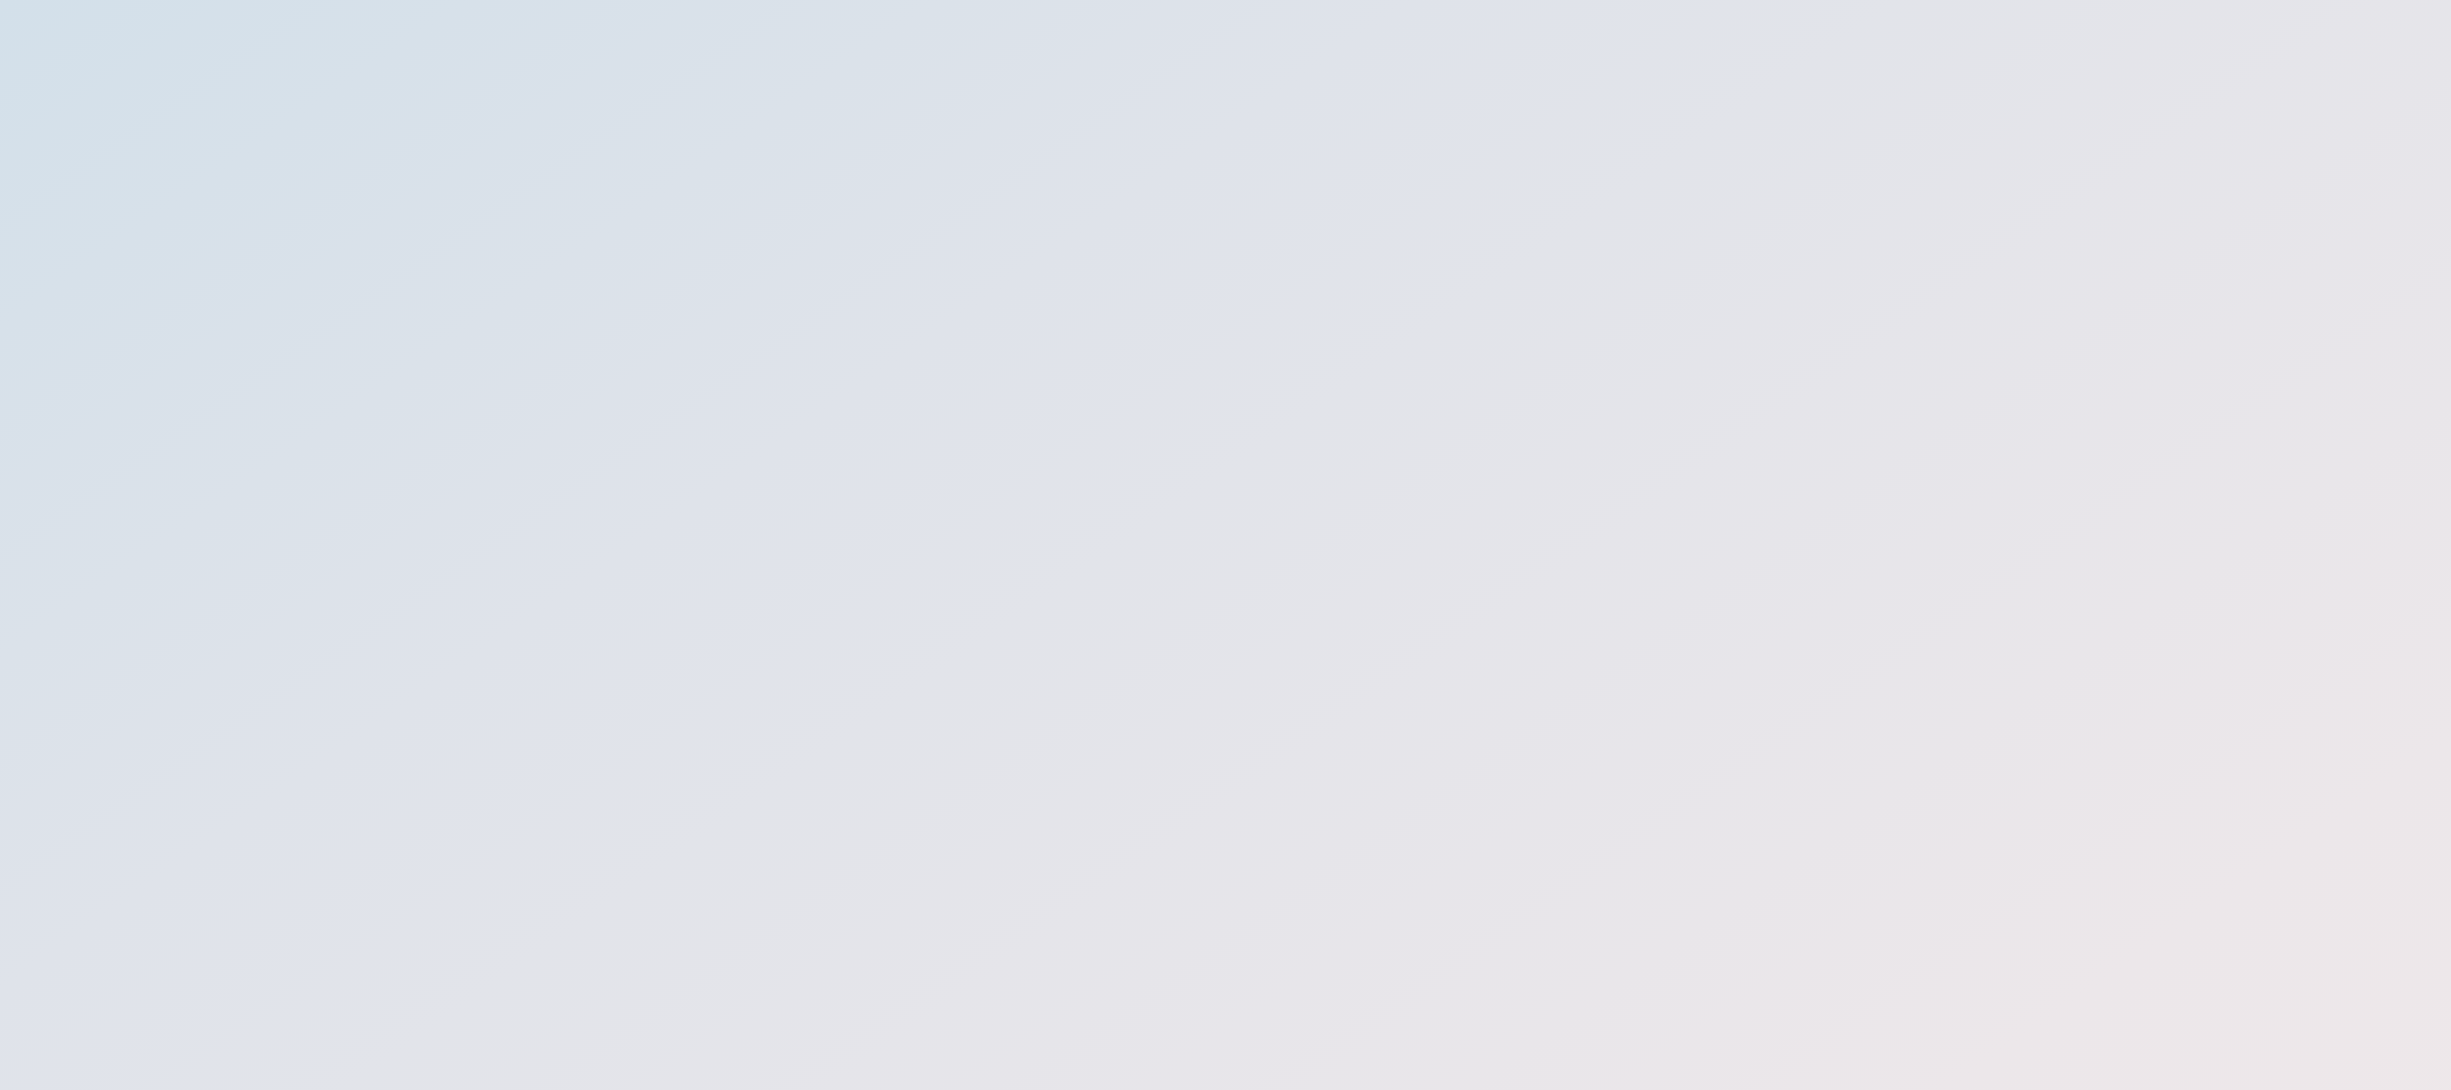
async function draw(canvas) {
	canvas.width = 2451;
	canvas.height = 1090;
	const c = canvas.getContext('2d');
	c.miterLimit = 4;
	c.fontKerning = 'normal';
	let gradient;

	c.fillStyle = '#fff';
	c.fillRect(0, 0, 2451, 1090);
	gradient = c.createLinearGradient(116, -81, 2336, 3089);
	gradient.addColorStop(0, '#d3e0ea');
	gradient.addColorStop(0.21, '#dfe3ea');
	gradient.addColorStop(0.52, '#ece7ea');
	gradient.addColorStop(1, '#f6eaea');
	c.fillStyle = gradient;
	c.fillRect(0, 0, 2451, 1090);
}

draw(document.querySelector('canvas'));
